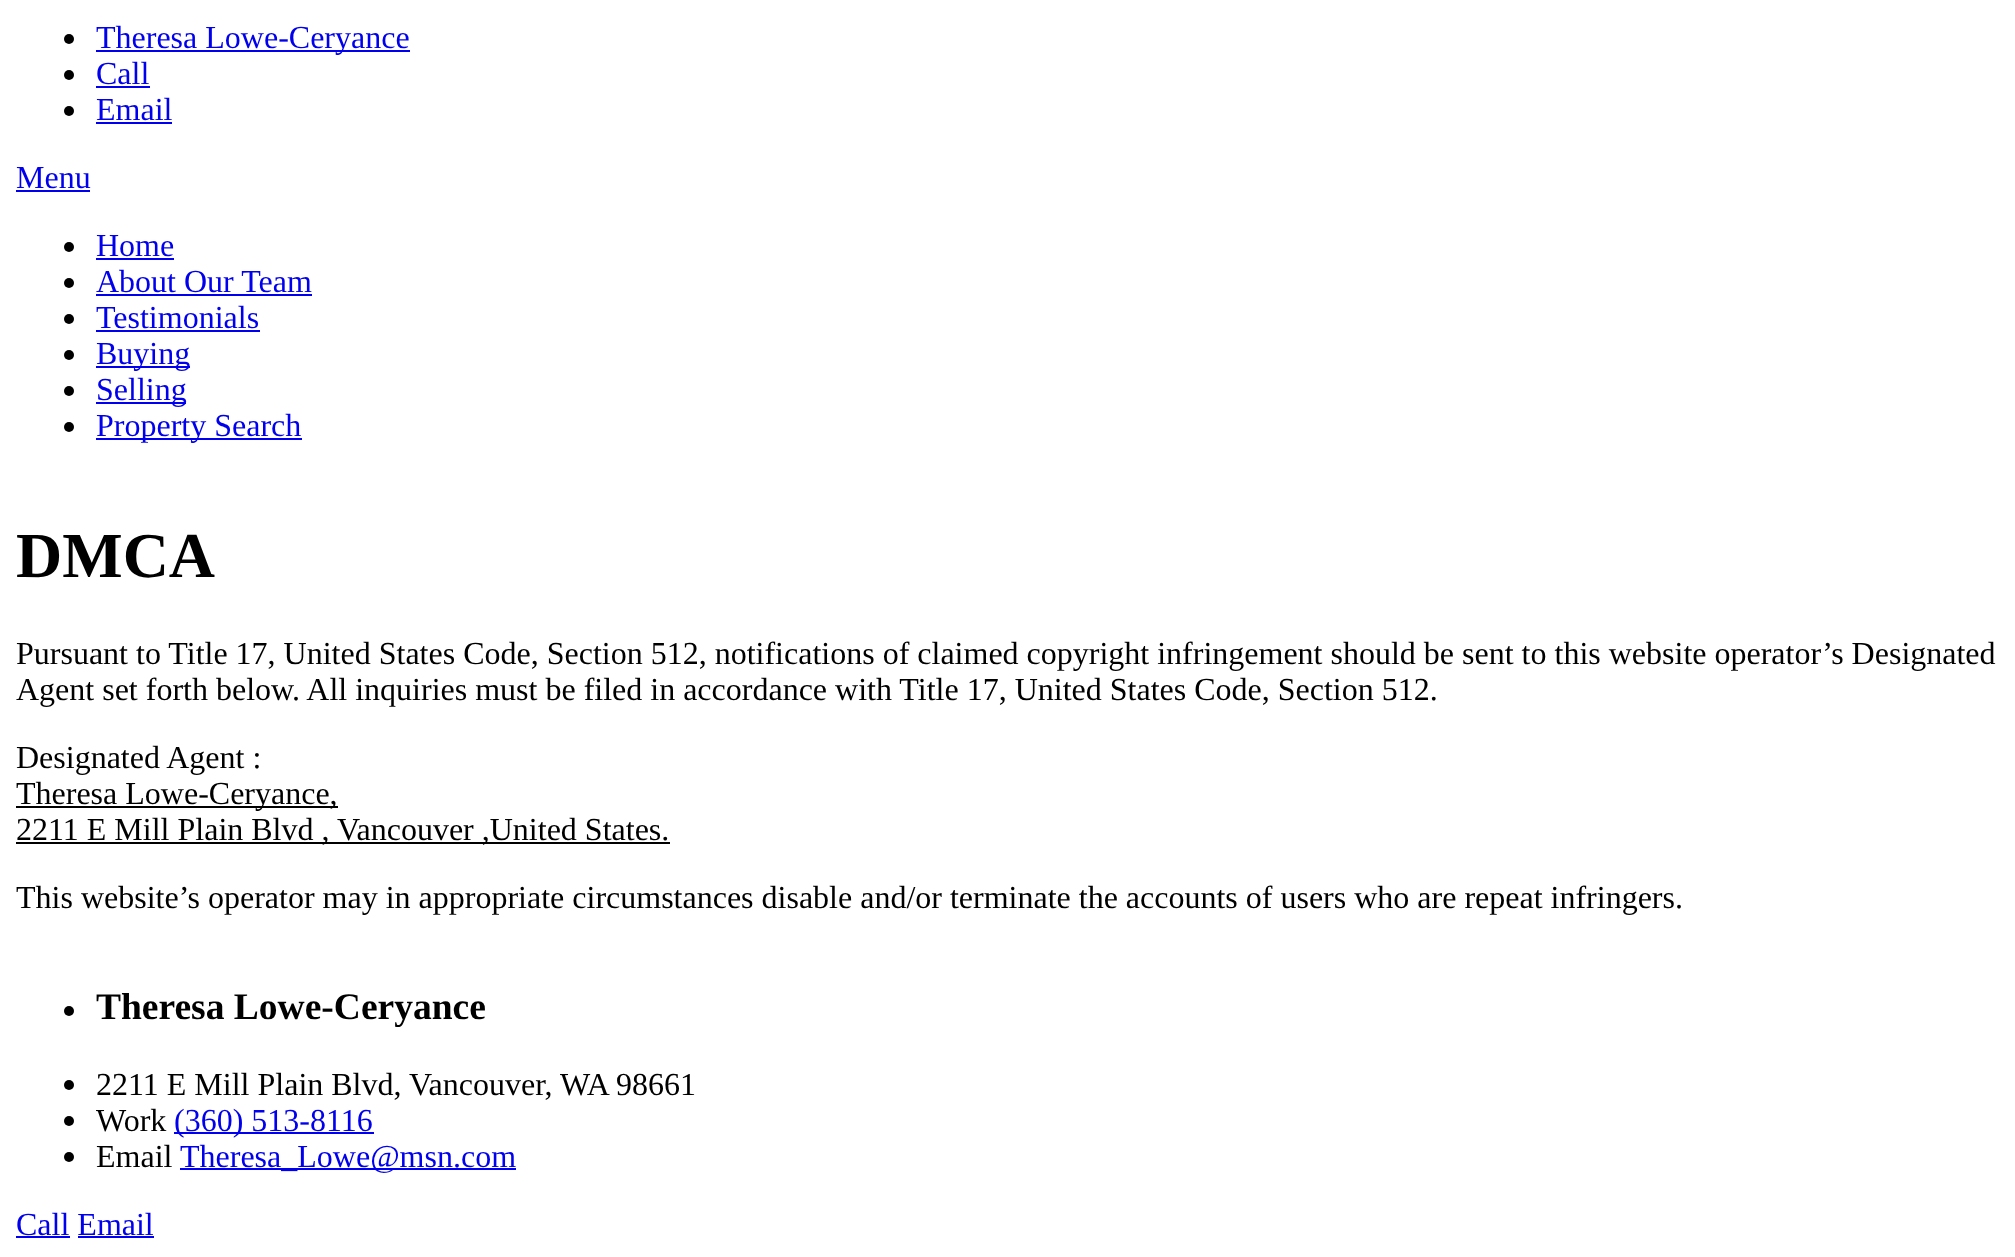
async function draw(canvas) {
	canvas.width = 2015;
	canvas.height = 1257;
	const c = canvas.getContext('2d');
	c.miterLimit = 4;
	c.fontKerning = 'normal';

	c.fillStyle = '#fff';
	c.fillRect(0, 0, 2015, 1257);
	c.fillStyle = '#000';
	c.beginPath();
	c.arc(69, 39, 5, 0, 2 * Math.PI);
	c.fill();
	c.fillStyle = '#00e';
	c.fillRect(96, 50, 314, 2);
	c.font = '32px Liberation Serif';
	c.fillText('Theresa Lowe-Ceryance', 96, 48);
	c.fillStyle = '#000';
	c.beginPath();
	c.arc(69, 75, 5, 0, 2 * Math.PI);
	c.fill();
	c.fillStyle = '#00e';
	c.fillText('Call', 96, 84);
	c.fillRect(96, 86, 54, 2);
	c.fillStyle = '#000';
	c.beginPath();
	c.arc(69, 111, 5, 0, 2 * Math.PI);
	c.fill();
	c.fillStyle = '#00e';
	c.fillText('Email', 96, 120);
	c.fillRect(96, 122, 76, 2);
	c.fillText('Menu', 16, 188);
	c.fillRect(16, 190, 74, 2);
	c.fillStyle = '#000';
	c.beginPath();
	c.arc(69, 247, 5, 0, 2 * Math.PI);
	c.fill();
	c.fillStyle = '#00e';
	c.fillText('Home', 96, 256);
	c.fillRect(96, 258, 78, 2);
	c.fillStyle = '#000';
	c.beginPath();
	c.arc(69, 283, 5, 0, 2 * Math.PI);
	c.fill();
	c.fillStyle = '#00e';
	c.fillText('About Our Team', 96, 292);
	c.fillRect(96, 294, 216, 2);
	c.fillStyle = '#000';
	c.beginPath();
	c.arc(69, 319, 5, 0, 2 * Math.PI);
	c.fill();
	c.fillStyle = '#00e';
	c.fillText('Testimonials', 96, 328);
	c.fillRect(96, 330, 164, 2);
	c.fillStyle = '#000';
	c.beginPath();
	c.arc(69, 355, 5, 0, 2 * Math.PI);
	c.fill();
	c.fillStyle = '#00e';
	c.fillRect(96, 366, 94, 2);
	c.fillText('Buying', 96, 364);
	c.fillStyle = '#000';
	c.beginPath();
	c.arc(69, 391, 5, 0, 2 * Math.PI);
	c.fill();
	c.fillStyle = '#00e';
	c.fillRect(96, 402, 90, 2);
	c.fillText('Selling', 96, 400);
	c.fillStyle = '#000';
	c.beginPath();
	c.arc(69, 427, 5, 0, 2 * Math.PI);
	c.fill();
	c.fillStyle = '#00e';
	c.fillRect(96, 438, 206, 2);
	c.fillText('Property Search', 96, 436);
	c.font = 'bold 64px Liberation Serif';
	c.fillStyle = '#000';
	c.fillText('DMCA', 16, 577);
	c.font = '32px Liberation Serif';
	for (const [text, x, y] of [
		['Pursuant to Title 17, United States Code, Section 512, notifications of claimed copyright infringement should be sent to this website operator’s Designated', 16, 664],
		['Agent set forth below. All inquiries must be filed in accordance with Title 17, United States Code, Section 512.', 16, 700],
		['Designated Agent :', 16, 768],
	]) {
		c.fillText(text, x, y);
	}
	c.fillRect(16, 806, 322, 2);
	c.fillText('Theresa Lowe-Ceryance,', 16, 804);
	c.fillRect(16, 842, 654, 2);
	c.fillText('2211 E Mill Plain Blvd , Vancouver ,United States.', 16, 840);
	c.fillText('This website’s operator may in appropriate circumstances disable and/or terminate the accounts of users who are repeat infringers.', 16, 908);
	c.beginPath();
	c.arc(69, 1011, 5, 0, 2 * Math.PI);
	c.fill();
	c.font = 'bold 37.5px Liberation Serif';
	c.fillText('Theresa Lowe-Ceryance', 96, 1019);
	c.beginPath();
	c.arc(69, 1085, 5, 0, 2 * Math.PI);
	c.fill();
	c.font = '32px Liberation Serif';
	for (const [text, x, y] of [
		['2211 E Mill Plain Blvd,', 96, 1095],
		['Vancouver,', 409, 1095],
		['WA', 560, 1095],
		['98661', 616, 1095],
	]) {
		c.fillText(text, x, y);
	}
	c.beginPath();
	c.arc(69, 1121, 5, 0, 2 * Math.PI);
	c.fill();
	c.fillText('Work', 96, 1131);
	c.fillStyle = '#00e';
	c.fillRect(174, 1132, 200, 2);
	c.fillText('(360) 513-8116', 174, 1131);
	c.fillStyle = '#000';
	c.beginPath();
	c.arc(69, 1157, 5, 0, 2 * Math.PI);
	c.fill();
	c.fillText('Email', 96, 1167);
	c.fillStyle = '#00e';
	c.fillRect(180, 1168, 336, 2);
	c.fillText('Theresa_Lowe@msn.com', 180, 1167);
	c.fillText('Call Email', 16, 1235);
	c.fillRect(16, 1236, 54, 2);
	c.fillRect(78, 1236, 76, 2);
}

draw(document.querySelector('canvas'));
